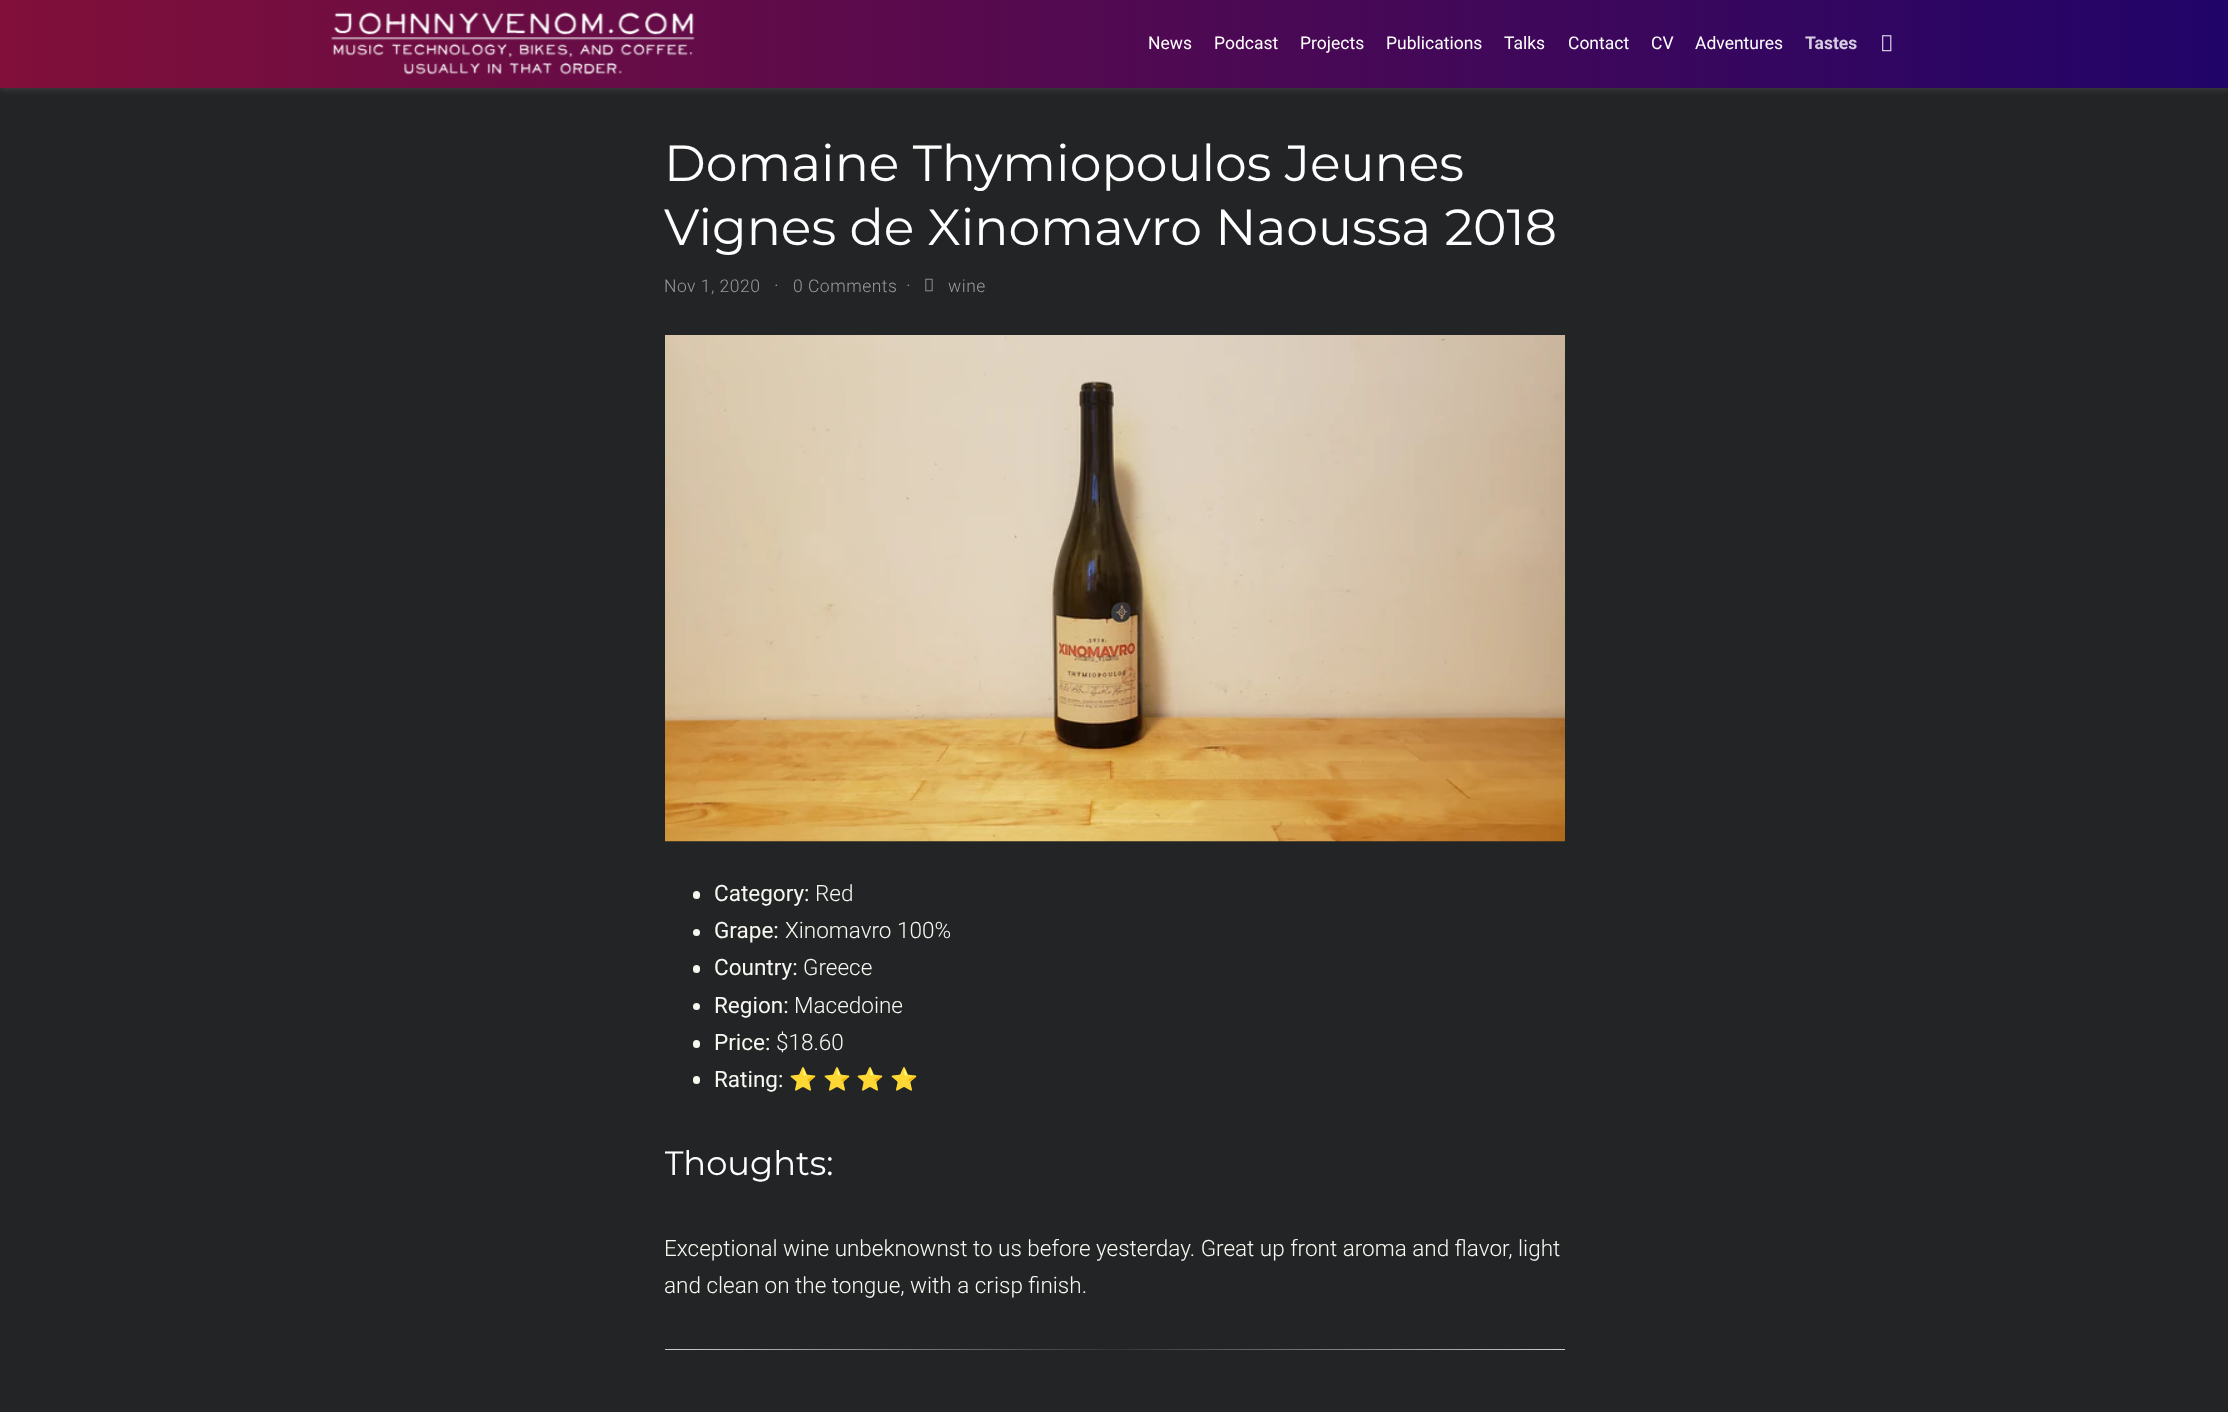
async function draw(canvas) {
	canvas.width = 2228;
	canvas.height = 1412;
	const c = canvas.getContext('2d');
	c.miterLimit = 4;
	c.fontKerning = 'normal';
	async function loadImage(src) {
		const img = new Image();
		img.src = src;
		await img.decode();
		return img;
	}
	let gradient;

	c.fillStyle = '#232425';
	c.fillRect(0, 0, 2228, 1412);
	c.fillStyle = '#ffffff1c';
	c.filter = 'blur(3px)';
	c.beginPath();
	c.rect(0, 3, 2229, 87);
	c.fill();
	c.filter = 'none';
	gradient = c.createLinearGradient(0, 44, 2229, 44);
	gradient.addColorStop(0, '#810f39');
	gradient.addColorStop(1, '#210469');
	c.fillStyle = gradient;
	c.fillRect(0, 0, 2228, 88);
	c.drawImage(await loadImage('img1.png'), 331, 12, 364, 63);
	c.font = '17.5px Roboto';
	c.fillStyle = '#fff';
	for (const [text, x, y] of [
		['News', 1148, 49],
		['Podcast', 1214, 49],
		['Projects', 1300, 49],
		['Publications', 1386, 49],
		['Talks', 1504, 49],
		['Contact', 1568, 49],
		['CV', 1651, 49],
		['Adventures', 1695, 49],
	]) {
		c.fillText(text, x, y);
	}
	c.font = 'bold 17.5px Roboto';
	c.fillStyle = '#d6cddf';
	c.fillText('Tastes', 1805, 49);
	c.drawImage(await loadImage('img2.png'), 1882, 35, 10, 17);
	c.font = '50.6px Montserrat';
	c.fillStyle = '#fff';
	c.fillText('Domaine Thymiopoulos Jeunes', 664, 181);
	c.fillText('Vignes de Xinomavro Naoussa 2018', 664, 245);
	c.letterSpacing = '0.5px';
	c.font = '300 17.5px Roboto';
	c.fillStyle = '#9a9a9b';
	c.fillText('Nov 1, 2020', 664, 292);
	c.font = '300 19px Roboto';
	c.fillText('·', 774, 292);
	c.font = '300 17.5px Roboto';
	c.fillText('0 Comments', 793, 292);
	c.font = '300 19px Roboto';
	c.fillText('·', 906, 292);
	c.drawImage(await loadImage('img3.png'), 925, 278, 8, 14);
	c.font = '300 17.5px Roboto';
	c.fillText('wine', 948, 292);
	c.drawImage(await loadImage('img4.png'), 665, 335, 900, 507);
	c.fillStyle = '#f8f8f2';
	c.beginPath();
	c.roundRect(693, 891, 7, 8, 3.5);
	c.fill();
	c.letterSpacing = '0px';
	c.font = '22.5px Roboto';
	c.fillText('Category:', 714, 901);
	c.font = '300 22.5px Roboto';
	c.fillText('Red', 815, 901);
	c.beginPath();
	c.arc(696.5, 932.5, 3.5, 0, 2 * Math.PI);
	c.fill();
	c.font = '22.5px Roboto';
	c.fillText('Grape:', 714, 938);
	c.font = '300 22.5px Roboto';
	c.fillText('Xinomavro 100%', 785, 938);
	c.beginPath();
	c.roundRect(693, 965, 7, 8, 3.5);
	c.fill();
	c.font = '22.5px Roboto';
	c.fillText('Country:', 714, 975);
	c.font = '300 22.5px Roboto';
	c.fillText('Greece', 803, 975);
	c.beginPath();
	c.arc(696.5, 1006.5, 3.5, 0, 2 * Math.PI);
	c.fill();
	c.font = '22.5px Roboto';
	c.fillText('Region:', 714, 1013);
	c.font = '300 22.5px Roboto';
	c.fillText('Macedoine', 794, 1013);
	c.beginPath();
	c.roundRect(693, 1040, 7, 8, 3.5);
	c.fill();
	c.font = '22.5px Roboto';
	c.fillText('Price:', 714, 1050);
	c.font = '300 22.5px Roboto';
	c.fillText('$18.60', 776, 1050);
	c.beginPath();
	c.roundRect(693, 1076, 7, 8, 3.5);
	c.fill();
	c.font = '22.5px Roboto';
	c.fillText('Rating:', 714, 1087);
	c.font = '22.5px Noto Color Emoji';
	for (const [text, x, y] of [
		['⭐️', 789, 1087],
		['⭐️', 823, 1087],
		['⭐️', 856, 1087],
		['⭐️', 890, 1087],
	]) {
		c.fillText(text, x, y);
	}
	c.save();
	c.beginPath();
	c.rect(665, 875, 900, 520);
	c.clip();
	c.font = '33.75px Montserrat';
	c.fillStyle = '#fff';
	c.fillText('Thoughts:', 664, 1175);
	c.restore();
	c.font = '300 22.5px Roboto';
	c.fillText('Exceptional wine unbeknownst to us before yesterday. Great up front aroma and flavor, light', 664, 1256);
	c.fillText('and clean on the tongue, with a crisp finish.', 664, 1293);
	gradient = c.createLinearGradient(665, 1349, 1565, 1349);
	gradient.addColorStop(0, '#ccc');
	gradient.addColorStop(0.5, '#333');
	gradient.addColorStop(1, '#ccc');
	c.fillStyle = gradient;
	c.fillRect(665, 1349, 900, 1);
}

draw(document.querySelector('canvas'));
